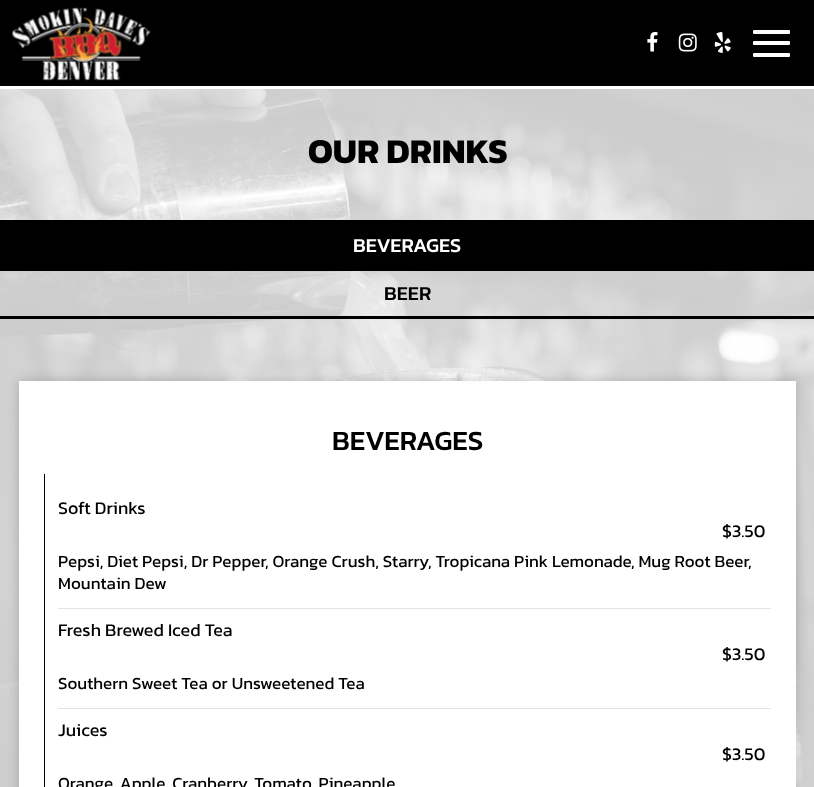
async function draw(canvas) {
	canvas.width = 814;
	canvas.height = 787;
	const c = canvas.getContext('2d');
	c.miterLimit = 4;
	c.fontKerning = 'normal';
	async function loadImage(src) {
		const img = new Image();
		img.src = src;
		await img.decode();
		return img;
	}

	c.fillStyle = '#fff';
	c.fillRect(0, 0, 814, 787);
	c.fillStyle = '#000';
	c.fillRect(0, 0, 814, 86);
	c.drawImage(await loadImage('img1.png'), 12, 7, 139, 74);
	c.drawImage(await loadImage('img2.png'), 647, 32, 11, 20);
	c.drawImage(await loadImage('img3.png'), 678, 33, 19, 19);
	c.drawImage(await loadImage('img4.png'), 714, 32, 17, 21);
	c.fillStyle = '#fff';
	c.beginPath();
	c.roundRect(753, 30, 37, 4, 1);
	c.fill();
	c.beginPath();
	c.roundRect(753, 41, 37, 4, 1);
	c.fill();
	c.beginPath();
	c.roundRect(753, 53, 37, 4, 1);
	c.fill();
	c.drawImage(await loadImage('img5.png'), 0, 89, 814, 698);
	c.font = 'bold 35px Kanit';
	c.fillStyle = '#000';
	c.fillText('OUR DRINKS', 308, 163);
	c.fillRect(0, 220, 814, 51);
	c.font = '500 20px Kanit';
	c.fillStyle = '#fff';
	c.fillText('BEVERAGES', 353, 252);
	c.fillStyle = '#000';
	c.fillRect(0, 316, 814, 3);
	c.fillText('BEER', 384, 300);
	c.fillStyle = '#00000033';
	c.filter = 'blur(6px)';
	c.beginPath();
	c.rect(19, 381, 777, 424);
	c.fill();
	c.filter = 'none';
	c.fillStyle = '#fff';
	c.fillRect(19, 381, 777, 406);
	c.font = '500 28px Kanit';
	c.fillStyle = '#000';
	c.fillText('BEVERAGES', 332, 450);
	c.fillRect(44, 474, 1, 313);
	c.fillStyle = '#e4e4e4';
	c.fillRect(58, 608, 713, 1);
	c.font = '17.9px Kanit';
	c.fillStyle = '#000';
	c.fillText('Soft Drinks', 58, 514);
	c.fillText('$3.50', 722, 537);
	c.font = '17.05px Kanit';
	c.fillText('Pepsi, Diet Pepsi, Dr Pepper, Orange Crush, Starry, Tropicana Pink Lemonade, Mug Root Beer,', 58, 567);
	c.fillText('Mountain Dew', 58, 589);
	c.fillStyle = '#e4e4e4';
	c.fillRect(58, 708, 713, 1);
	c.font = '17.9px Kanit';
	c.fillStyle = '#000';
	c.fillText('Fresh Brewed Iced Tea', 58, 636);
	c.fillText('$3.50', 722, 660);
	c.font = '17.05px Kanit';
	c.fillText('Southern Sweet Tea or Unsweetened Tea', 58, 689);
	c.font = '17.9px Kanit';
	c.fillText('Juices', 58, 736);
	c.fillText('$3.50', 722, 760);
	c.font = '17.05px Kanit';
	c.fillText('Orange, Apple, Cranberry, Tomato, Pineapple', 58, 789);
}

draw(document.querySelector('canvas'));
